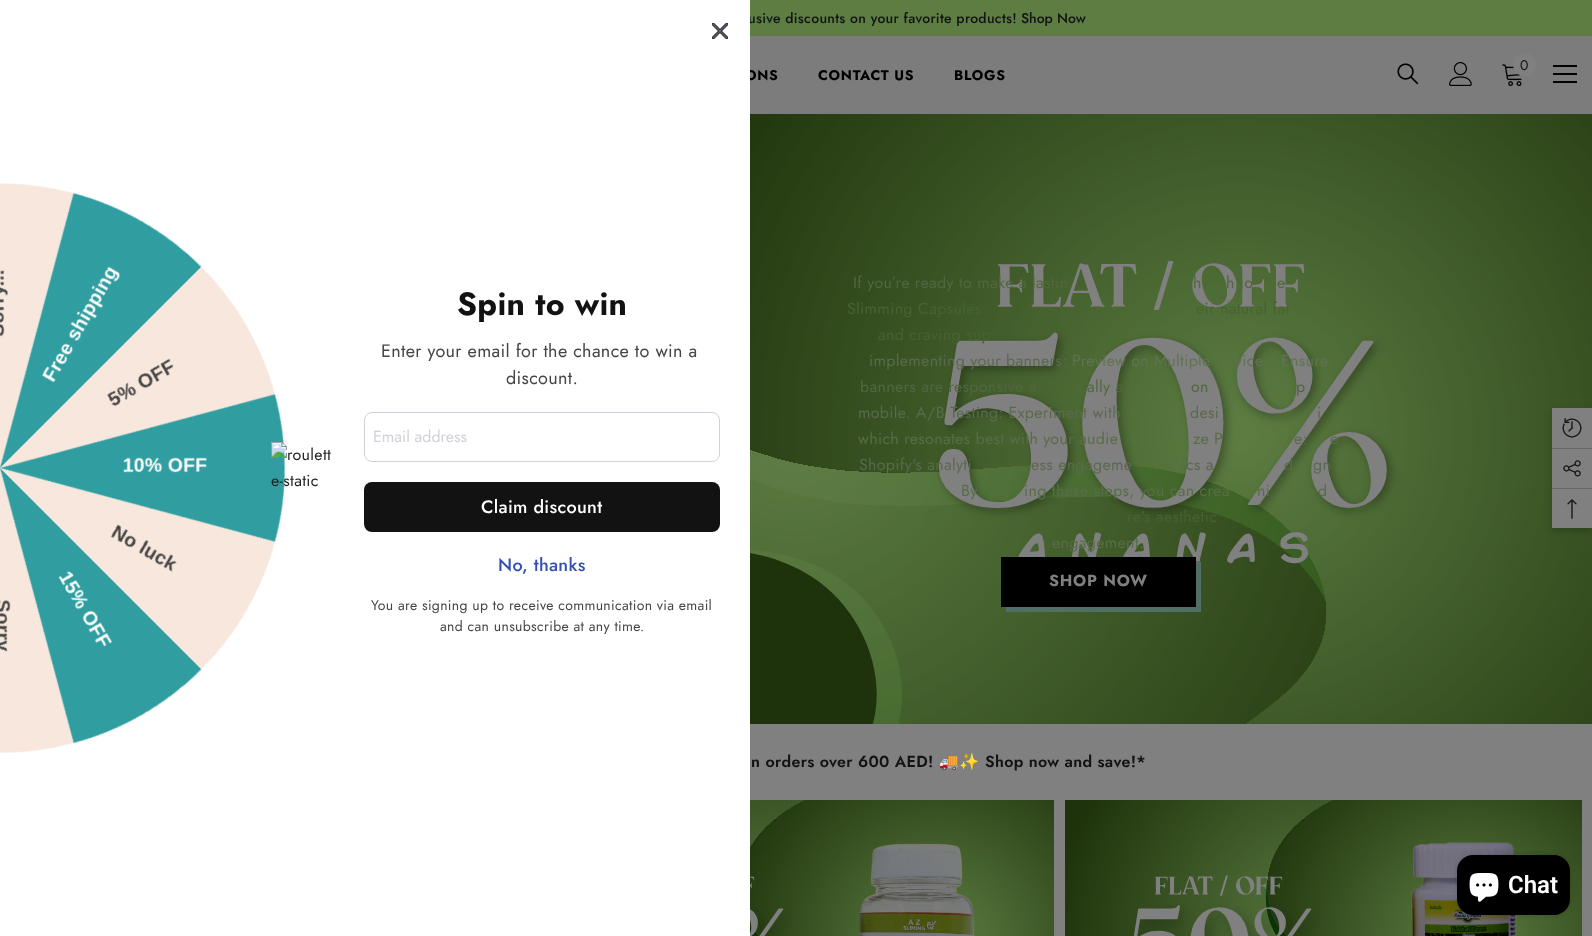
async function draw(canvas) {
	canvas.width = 1592;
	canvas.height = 936;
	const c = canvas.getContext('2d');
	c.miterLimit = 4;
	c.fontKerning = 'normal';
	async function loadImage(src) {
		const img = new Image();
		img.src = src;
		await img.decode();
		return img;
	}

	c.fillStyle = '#808080';
	c.fillRect(0, 0, 1592, 936);
	c.fillStyle = '#5d7d43';
	c.fillRect(750, 0, 842, 36);
	c.letterSpacing = '0.3px';
	c.font = '500 14px Jost';
	c.fillStyle = '#121212';
	c.fillText('usive discounts on your favorite products!', 748, 23);
	c.fillStyle = '#7c7c7c';
	c.fillRect(750, 36, 842, 78);
	c.letterSpacing = '0.75px';
	c.font = 'bold 14px Jost';
	c.fillStyle = '#000';
	c.fillText('ONS', 745, 80);
	c.fillStyle = '#fff';
	c.fillRect(0, 0, 750, 936);
	c.drawImage(await loadImage('img1.png'), 712, 23, 16, 16);
	c.drawImage(await loadImage('img2.png'), 0, 183, 286, 570);
	c.drawImage(await loadImage('img3.png'), 271, 442, 60, 45);
	c.letterSpacing = '0.32px';
	c.font = 'bold 32px Jost';
	c.fillStyle = '#121212';
	c.fillText('Spin to win', 457, 315);
	c.font = '18px Jost';
	c.fillStyle = '#454545';
	c.fillText('Enter your email for the chance to win a', 381, 357);
	c.fillText('discount.', 506, 384);
	c.beginPath();
	c.roundRect(364.5, 412.5, 355, 49, 7.5);
	c.strokeStyle = '#d1d1db';
	c.stroke();
	c.letterSpacing = '0px';
	c.font = '16px Jost';
	c.fillStyle = '#d1d1db';
	c.fillText('Email address', 373, 442);
	c.fillStyle = '#121212';
	c.beginPath();
	c.roundRect(364, 482, 356, 50, 8);
	c.fill();
	c.letterSpacing = '0.32px';
	c.font = '500 18px Jost';
	c.fillStyle = '#fff';
	c.fillText('Claim discount', 481, 513);
	c.fillStyle = '#334fb4';
	c.fillText('No, thanks', 498, 571);
	c.font = '14px Jost';
	c.fillStyle = '#454545';
	c.fillText('You are signing up to receive communication via email', 371, 610);
	c.fillText('and can unsubscribe at any time.', 440, 631);
	c.letterSpacing = '0px';
	c.font = '500 14px Jost';
	c.fillStyle = '#121212';
	c.fillText('Shop Now', 1021, 23);
	c.drawImage(await loadImage('img4.png'), 1397, 63, 22, 22);
	c.drawImage(await loadImage('img5.png'), 1449, 62, 23, 24);
	c.drawImage(await loadImage('img6.png'), 1502, 64, 20, 22);
	c.fillStyle = '#808080';
	c.beginPath();
	c.arc(1524.5, 64.5, 11.5, 0, 2 * Math.PI);
	c.fill();
	c.font = '14px Jost';
	c.fillStyle = '#121212';
	c.fillText('0', 1520, 70);
	for (const [x, y, w, h, color] of [
		[1553, 73, 24, 2, '#000'],
		[1553, 65, 24, 2, '#000'],
		[1553, 81, 24, 2, '#000'],
	]) {
		c.fillStyle = color;
		c.fillRect(x, y, w, h);
	}
	c.letterSpacing = '0.75px';
	c.font = 'bold 14px Jost';
	c.fillText('CONTACT US', 818, 80);
	c.fillText('BLOGS', 954, 80);
	c.drawImage(await loadImage('img7.png'), 750, 114, 842, 610);
	c.letterSpacing = '0.32px';
	c.font = '16px Jost';
	c.fillStyle = '#526740';
	for (const [text, x, y] of [
		['If you’re ready to make a lastin', 853, 288],
		['h', 1193, 288],
		['h jo', 1226, 288],
		['e', 1277, 288],
	]) {
		c.fillText(text, x, y);
	}
	c.fillStyle = '#486332';
	for (const [text, x, y] of [
		['Slimming Capsules', 847, 314],
		['eir natural fat', 1196, 314],
		['and craving sup', 878, 340],
	]) {
		c.fillText(text, x, y);
	}
	c.fillStyle = '#5b694f';
	c.fillText('implementing your banners:', 869, 366);
	c.fillStyle = '#617352';
	for (const [text, x, y] of [
		['Preview on Multiple', 1072, 366],
		['vice', 1235, 366],
		['Ensure', 1281, 366],
	]) {
		c.fillText(text, x, y);
	}
	c.fillStyle = '#526740';
	for (const [text, x, y] of [
		['banners are responsive a', 860, 392],
		['ally a', 1087, 392],
		['on', 1191, 392],
		['p', 1296, 392],
	]) {
		c.fillText(text, x, y);
	}
	c.fillStyle = '#5b694f';
	for (const [text, x, y] of [
		['mobile. A/B Testing: Experiment with', 858, 418],
		['desi', 1190, 418],
		['i', 1317, 418],
	]) {
		c.fillText(text, x, y);
	}
	c.fillStyle = '#596d48';
	for (const [text, x, y] of [
		['which resonates best with your audie', 858, 444],
		['ze P', 1193, 444],
		['e:', 1294, 444],
		['e', 1330, 444],
	]) {
		c.fillText(text, x, y);
	}
	c.fillStyle = '#5b694f';
	for (const [text, x, y] of [
		['Shopify\'s analyti', 859, 470],
		['ess engageme', 1031, 470],
		['cs a', 1186, 470],
		['d', 1284, 470],
		['gn', 1313, 470],
	]) {
		c.fillText(text, x, y);
	}
	c.fillStyle = '#596d48';
	for (const [text, x, y] of [
		['By', 961, 496],
		['ing these steps, you can crea', 1024, 496],
		['ni', 1257, 496],
		['d', 1318, 496],
	]) {
		c.fillText(text, x, y);
	}
	c.fillStyle = '#486332';
	c.fillText('re\'s aesthetic', 1127, 522);
	c.fillStyle = '#596d48';
	c.fillText('engagement.', 1052, 548);
	c.fillStyle = '#516f67';
	c.beginPath();
	c.moveTo(1006, 607);
	c.lineTo(1006, 612);
	c.lineTo(1201, 612);
	c.lineTo(1201, 562);
	c.lineTo(1196, 562);
	c.lineTo(1196, 607);
	c.closePath();
	c.fill();
	c.fillStyle = '#000';
	c.fillRect(1001, 557, 195, 50);
	c.letterSpacing = '0.75px';
	c.font = 'bold 16px Jost';
	c.fillStyle = '#808080';
	c.fillText('SHOP NOW', 1049, 586);
	c.letterSpacing = '0.32px';
	c.font = '600 16px Jost';
	c.fillStyle = '#121212';
	c.fillText('n orders over 600 AED!', 751, 767);
	c.font = 'bold 16px Noto Color Emoji';
	c.fillText('🚚✨', 939, 767);
	c.font = '600 16px Jost';
	c.fillText('Shop now and save!*', 985, 767);
	c.drawImage(await loadImage('img8.png'), 750, 800, 304, 136);
	c.drawImage(await loadImage('img9.png'), 1065, 800, 517, 136);
	c.fillStyle = '#00000033';
	c.filter = 'blur(3.5px)';
	c.beginPath();
	c.rect(1552, 411, 40, 120);
	c.fill();
	c.filter = 'none';
	c.fillStyle = '#808080';
	c.fillRect(1552, 408, 40, 120);
	c.drawImage(await loadImage('img10.png'), 1562, 418, 20, 20);
	c.fillStyle = '#666';
	c.fillRect(1552, 448, 40, 1);
	c.drawImage(await loadImage('img11.png'), 1563, 460, 18, 17);
	c.fillRect(1552, 488, 40, 1);
	c.drawImage(await loadImage('img12.png'), 1567, 499, 10, 20);
	c.fillStyle = '#00000026';
	c.filter = 'blur(2.5px)';
	c.beginPath();
	c.roundRect(1457, 855, 113, 60, 16);
	c.fill();
	c.filter = 'none';
	c.fillStyle = '#000';
	c.beginPath();
	c.roundRect(1457, 855, 113, 60, 16);
	c.fill();
	c.drawImage(await loadImage('img13.png'), 1469, 873, 30, 29);
	c.letterSpacing = '0px';
	c.font = '600 24px Roboto';
	c.fillStyle = '#fff';
	c.fillText('Chat', 1508, 893);
}

draw(document.querySelector('canvas'));
